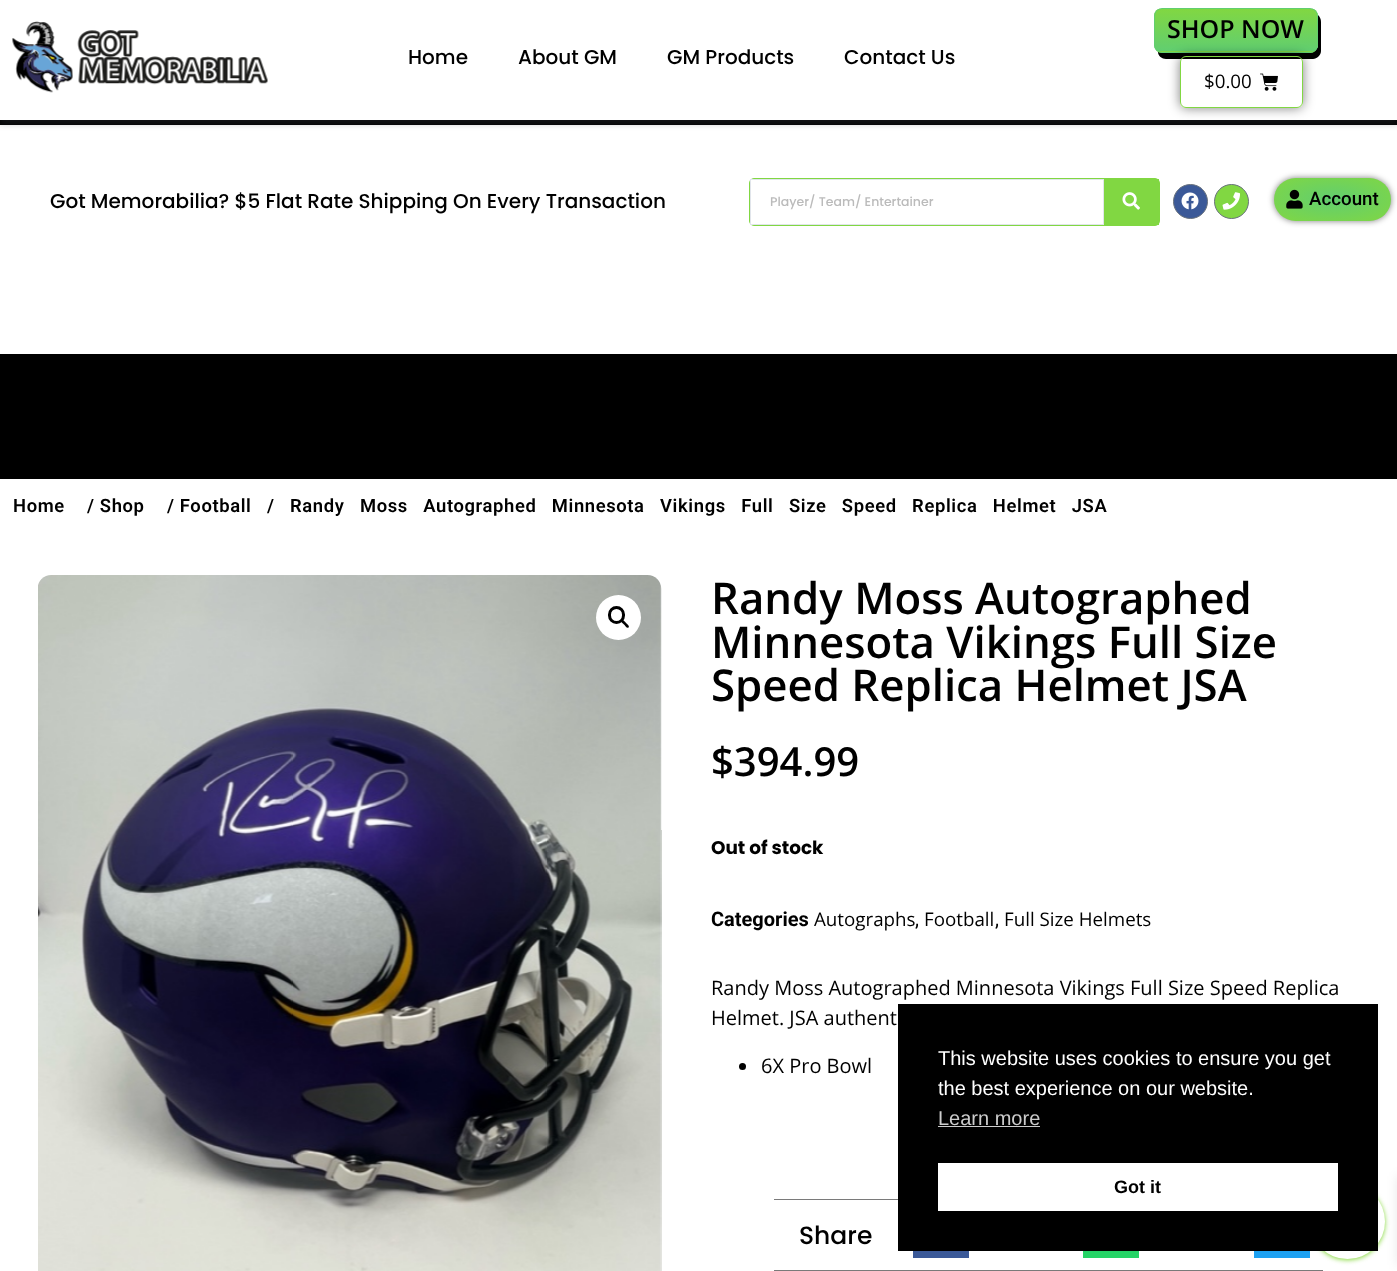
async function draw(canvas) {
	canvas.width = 1397;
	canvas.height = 1271;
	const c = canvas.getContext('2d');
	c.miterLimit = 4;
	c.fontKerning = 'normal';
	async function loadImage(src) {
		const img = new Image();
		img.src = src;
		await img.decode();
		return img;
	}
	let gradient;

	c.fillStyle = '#fff';
	c.fillRect(0, 0, 1397, 1271);
	c.fillStyle = '#000';
	c.fillRect(0, 120, 1397, 5);
	c.fillStyle = '#393f484d';
	c.filter = 'blur(3px)';
	c.beginPath();
	c.rect(0, 4, 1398, 120);
	c.fill();
	c.filter = 'none';
	c.fillStyle = '#fff';
	c.fillRect(0, 0, 1397, 120);
	c.drawImage(await loadImage('img1.png'), 12, 21, 256, 72);
	c.font = '500 20px Poppins';
	c.fillStyle = '#000';
	for (const [text, x, y] of [
		['Home', 408, 64],
		['About GM', 518, 64],
		['GM Products', 667, 64],
		['Contact Us', 844, 64],
	]) {
		c.fillText(text, x, y);
	}
	c.beginPath();
	c.moveTo(1158, 52);
	c.bezierCurveTo(1158, 56, 1162, 59, 1166, 59);
	c.lineTo(1313, 59);
	c.bezierCurveTo(1317, 59, 1321, 55, 1321, 51);
	c.lineTo(1321, 22);
	c.bezierCurveTo(1321, 19, 1320, 17, 1318, 15);
	c.lineTo(1318, 45);
	c.bezierCurveTo(1318, 49, 1314, 52, 1310, 52);
	c.lineTo(1161, 52);
	c.closePath();
	c.fill();
	c.save();
	c.beginPath();
	c.roundRect(1154, 8, 164, 45, 8);
	c.clip();
	gradient = c.createLinearGradient(1236, 9, 1236, 51);
	gradient.addColorStop(0, '#81d742');
	gradient.addColorStop(1, '#61ce70');
	c.fillStyle = gradient;
	c.fillRect(1154, 9, 164, 42);
	gradient = c.createLinearGradient(1236, 51, 1236, 94);
	gradient.addColorStop(0, '#81d742');
	gradient.addColorStop(1, '#61ce70');
	c.fillStyle = gradient;
	c.fillRect(1154, 51, 164, 2);
	c.restore();
	c.beginPath();
	c.roundRect(1154.5, 8.5, 163, 44, 7.5);
	c.strokeStyle = '#61ce70';
	c.stroke();
	c.font = '600 25px Open Sans';
	c.fillText('SHOP NOW', 1167, 38);
	c.save();
	c.beginPath();
	c.moveTo(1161, 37);
	c.lineTo(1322, 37);
	c.lineTo(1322, 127);
	c.lineTo(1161, 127);
	c.closePath();
	c.moveTo(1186, 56);
	c.lineTo(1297, 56);
	c.bezierCurveTo(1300.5, 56, 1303, 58.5, 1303, 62);
	c.lineTo(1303, 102);
	c.bezierCurveTo(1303, 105.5, 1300.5, 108, 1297, 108);
	c.lineTo(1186, 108);
	c.bezierCurveTo(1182.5, 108, 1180, 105.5, 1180, 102);
	c.lineTo(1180, 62);
	c.bezierCurveTo(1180, 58.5, 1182.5, 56, 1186, 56);
	c.closePath();
	c.clip('evenodd');
	c.fillStyle = '#00000080';
	c.filter = 'blur(6px)';
	c.beginPath();
	c.roundRect(1180, 56, 123, 52, 6);
	c.fill();
	c.filter = 'none';
	c.restore();
	c.beginPath();
	c.roundRect(1180.5, 56.5, 122, 51, 5.5);
	c.strokeStyle = '#81d742';
	c.stroke();
	c.font = '18.75px Open Sans';
	c.fillText('$0.00', 1204, 88);
	c.drawImage(await loadImage('img2.png'), 1260, 73, 18, 18);
	c.fillRect(0, 354, 1397, 125);
	c.font = '500 20px Poppins';
	c.fillText('Got Memorabilia? $5 Flat Rate Shipping On Every Transaction', 50, 208);
	c.beginPath();
	c.roundRect(749.5, 178.5, 410, 47, 4.5);
	c.stroke();
	c.fillStyle = '#fff';
	c.fillRect(751, 180, 1, 44);
	c.strokeStyle = '#e1e5eb';
	c.strokeRect(750.5, 179.5, 353, 45);
	c.font = '500 12.5px Poppins';
	c.fillStyle = '#bbb';
	c.fillText('Player/ Team/ Entertainer', 770, 206);
	c.fillStyle = '#81d742';
	c.fillRect(1104, 179, 55, 46);
	c.drawImage(await loadImage('img3.png'), 1122, 192, 18, 18);
	c.fillStyle = '#3b5998';
	c.beginPath();
	c.arc(1190.5, 201.5, 17, 0, 2 * Math.PI);
	c.fill();
	c.strokeStyle = '#69727d';
	c.stroke();
	c.drawImage(await loadImage('img4.png'), 1181, 192, 18, 18);
	c.fillStyle = '#81d742';
	c.beginPath();
	c.arc(1231.5, 201.5, 17, 0, 2 * Math.PI);
	c.fill();
	c.stroke();
	c.drawImage(await loadImage('img5.png'), 1222, 192, 18, 18);
	c.fillStyle = '#00000080';
	c.filter = 'blur(3px)';
	c.beginPath();
	c.roundRect(1274, 178, 117, 43, 21.5);
	c.fill();
	c.filter = 'none';
	gradient = c.createRadialGradient(1333, 532.81, 0, 1333, 532.81, 83);
	gradient.addColorStop(0, '#61ce70');
	gradient.addColorStop(1, '#81d742');
	c.fillStyle = gradient;
	c.beginPath();
	c.roundRect(1274, 178, 117, 43, 21.5);
	c.save();
	c.clip();
	c.scale(1, 31 / 83);
	c.fillRect(0, 0, 1397, 3403);
	c.restore();
	c.drawImage(await loadImage('img6.png'), 1286, 189, 17, 20);
	c.font = '500 18.75px Roboto';
	c.fillStyle = '#000';
	c.fillText('Account', 1309, 205);
	c.letterSpacing = '0.62px';
	c.font = '600 18.4px Roboto';
	for (const [text, x, y] of [
		['Home', 13, 512],
		['/ Shop', 87, 512],
		['/ Football', 167, 512],
	]) {
		c.fillText(text, x, y);
	}
	c.wordSpacing = '10.25px';
	c.fillText('/ Randy Moss Autographed Minnesota Vikings Full Size Speed Replica Helmet JSA', 267, 512);
	c.drawImage(await loadImage('img7.png'), 38, 575, 624, 696);
	c.fillStyle = '#fff';
	c.beginPath();
	c.arc(618.5, 617.5, 22.5, 0, 2 * Math.PI);
	c.fill();
	c.beginPath();
	c.roundRect(609.5, 607.5, 14, 15, 7);
	c.strokeStyle = '#000';
	c.lineWidth = 3;
	c.stroke();
	c.fillStyle = '#000';
	c.beginPath();
	c.moveTo(621.5, 620.5);
	c.bezierCurveTo(623, 619, 625, 622, 626, 623);
	c.bezierCurveTo(626.5, 623.5, 630, 626, 628.5, 627.5);
	c.bezierCurveTo(627, 629, 625, 625.5, 624, 624.5);
	c.bezierCurveTo(623.5, 624, 620, 621.5, 621.5, 620.5);
	c.closePath();
	c.fill();
	c.letterSpacing = '0px';
	c.wordSpacing = '0px';
	c.font = '600 43.75px Open Sans';
	for (const [text, x, y] of [
		['Randy Moss Autographed', 711, 614],
		['Minnesota Vikings Full Size', 711, 658],
		['Speed Replica Helmet JSA', 711, 701],
	]) {
		c.fillText(text, x, y);
	}
	c.font = '600 40px Open Sans';
	c.fillText('$394.99', 711, 776);
	c.font = 'bold 18.4px Poppins';
	c.fillText('Out of stock', 711, 854);
	c.font = 'bold 20px Roboto';
	c.fillText('Categories', 711, 926);
	c.font = '18.75px Open Sans';
	c.fillText('Autographs', 814, 926);
	c.font = '20px Roboto';
	c.fillText(',', 915, 926);
	c.font = '18.75px Open Sans';
	c.fillText('Football', 924, 926);
	c.font = '20px Roboto';
	c.fillText(',', 995, 926);
	c.font = '18.75px Open Sans';
	c.fillText('Full Size Helmets', 1004, 926);
	c.font = '20px Open Sans';
	c.fillText('Randy Moss Autographed Minnesota Vikings Full Size Speed Replica', 711, 995);
	c.fillText('Helmet. JSA authent', 711, 1025);
	c.beginPath();
	c.arc(742.5, 1066.5, 3.5, 0, 2 * Math.PI);
	c.fill();
	c.fillText('6X Pro Bowl', 761, 1073);
	c.fillStyle = '#7a7a7a';
	c.fillRect(774, 1199, 126, 1);
	c.fillRect(774, 1270, 549, 1);
	c.font = '500 25px Poppins';
	c.fillStyle = '#000';
	c.fillText('Share', 799, 1244);
	for (const [x, y, w, h, color] of [
		[913, 1251, 56, 7, '#3b5998'],
		[1083, 1251, 56, 7, '#25d366'],
		[1254, 1251, 56, 7, '#1da1f2'],
	]) {
		c.fillStyle = color;
		c.fillRect(x, y, w, h);
	}
	c.fillStyle = '#81d735';
	c.filter = 'blur(2.5px)';
	c.beginPath();
	c.roundRect(1310, 1185, 75, 75, 37.5);
	c.fill();
	c.filter = 'none';
	c.fillStyle = '#0000001a';
	c.filter = 'blur(6px)';
	c.beginPath();
	c.rect(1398, 1176, 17, 89);
	c.fill();
	c.filter = 'none';
	c.fillStyle = '#fff';
	c.beginPath();
	c.arc(1347.5, 1221.5, 37.5, 0, 2 * Math.PI);
	c.fill();
	c.fillStyle = '#000';
	c.fillRect(898, 1004, 480, 247);
	c.font = '20px Liberation Sans';
	c.fillStyle = '#fff';
	c.fillText('This website uses cookies to ensure you get', 938, 1065);
	c.fillText('the best experience on our website.', 938, 1095);
	c.fillStyle = '#ccc';
	c.fillText('Learn more', 938, 1125);
	c.fillRect(938, 1126, 102, 1);
	c.fillStyle = '#fff';
	c.fillRect(938, 1163, 400, 48);
	c.font = 'bold 18px Liberation Sans';
	c.fillStyle = '#000';
	c.fillText('Got it', 1114, 1193);
}

draw(document.querySelector('canvas'));
